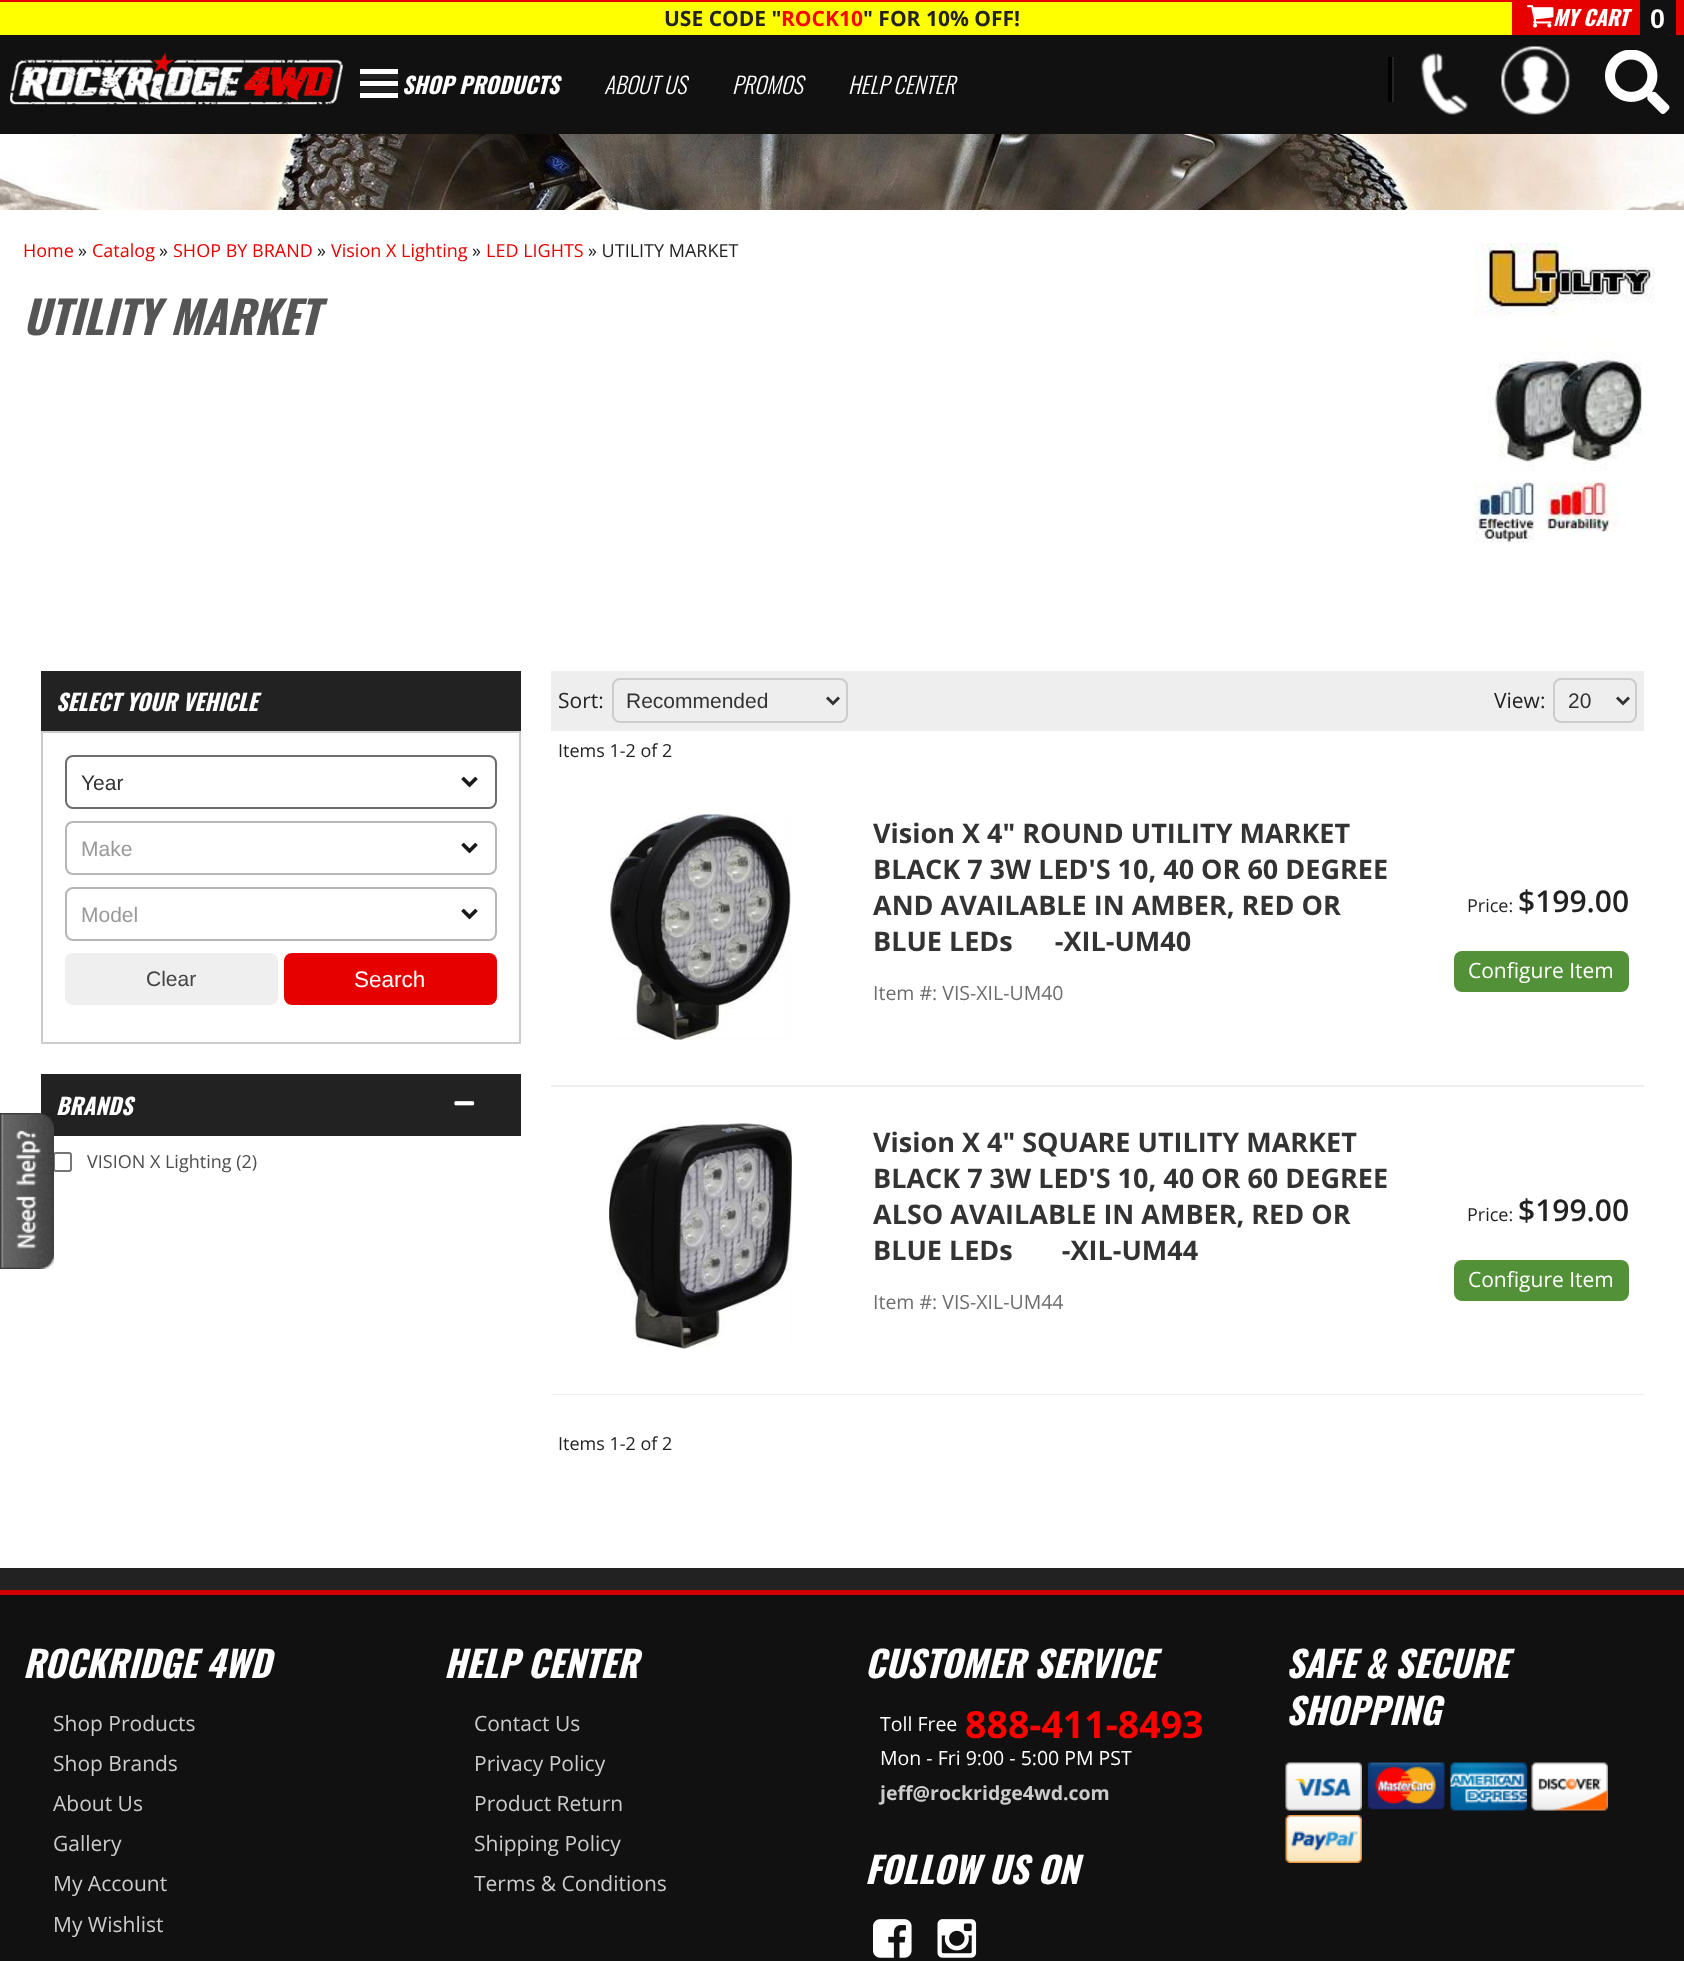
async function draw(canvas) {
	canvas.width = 1684;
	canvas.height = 1961;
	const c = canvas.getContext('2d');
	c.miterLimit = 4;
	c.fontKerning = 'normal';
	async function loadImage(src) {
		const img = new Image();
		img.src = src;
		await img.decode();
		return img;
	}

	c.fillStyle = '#222';
	c.fillRect(0, 0, 1684, 1961);
	c.drawImage(await loadImage('img1.png'), 0, 134, 1684, 76);
	for (const [x, y, w, h, color] of [
		[0, 35, 1684, 99, '#111'],
		[0, 0, 1512, 2, '#e70000'],
		[0, 2, 1512, 33, '#ff0'],
	]) {
		c.fillStyle = color;
		c.fillRect(x, y, w, h);
	}
	c.font = 'bold 21px Open Sans';
	c.fillStyle = '#222';
	c.fillText('USE CODE "', 664, 26);
	c.fillStyle = '#f00';
	c.fillText('ROCK10', 781, 26);
	c.fillStyle = '#222';
	c.fillText('" FOR 10% OFF!', 863, 26);
	c.fillStyle = '#e70000';
	c.fillRect(1512, 0, 172, 35);
	c.drawImage(await loadImage('img2.png'), 1527, 5, 27, 23);
	c.font = 'italic bold 21px Oswald';
	c.fillStyle = '#fff';
	c.fillText('MY CART', 1553, 26);
	c.fillStyle = '#111';
	c.fillRect(1640, 0, 36, 35);
	c.font = 'bold 27px Liberation Sans';
	c.fillStyle = '#fff';
	c.fillText('0', 1650, 28);
	c.drawImage(await loadImage('img3.png'), 10, 52, 333, 53);
	for (const [x, y, w, h, color] of [
		[360, 93, 38, 5, '#fff'],
		[360, 87, 38, 5, '#222'],
		[360, 81, 38, 5, '#fff'],
		[360, 74, 38, 5, '#222'],
		[360, 69, 38, 5, '#fff'],
	]) {
		c.fillStyle = color;
		c.fillRect(x, y, w, h);
	}
	c.font = 'italic bold 22.5px Oswald';
	c.fillText('SHOP PRODUCTS', 402, 94);
	c.font = 'italic 300 22.5px Oswald';
	for (const [text, x, y] of [
		['ABOUT US', 604, 94],
		['PROMOS', 732, 94],
		['HELP CENTER', 848, 94],
	]) {
		c.fillText(text, x, y);
	}
	c.fillStyle = '#000';
	c.fillRect(1388, 57, 4, 45);
	c.fillStyle = '#252525';
	c.fillRect(1392, 57, 2, 45);
	c.drawImage(await loadImage('img4.png'), 1421, 53, 47, 62);
	c.drawImage(await loadImage('img5.png'), 1501, 46, 69, 69);
	c.drawImage(await loadImage('img6.png'), 1605, 50, 65, 64);
	c.fillStyle = '#fff';
	c.fillRect(0, 210, 1684, 1358);
	c.font = '18px Open Sans';
	c.fillStyle = '#e70000';
	c.fillText('Home', 23, 257);
	c.fillStyle = '#222';
	c.fillText('»', 78, 257);
	c.fillStyle = '#e70000';
	c.fillText('Catalog', 92, 257);
	c.fillStyle = '#222';
	c.fillText('»', 159, 257);
	c.fillStyle = '#e70000';
	c.fillText('SHOP BY BRAND', 173, 257);
	c.fillStyle = '#222';
	c.fillText('»', 317, 257);
	c.fillStyle = '#e70000';
	c.fillText('Vision X Lighting', 331, 257);
	c.fillStyle = '#222';
	c.fillText('»', 472, 257);
	c.fillStyle = '#e70000';
	c.fillText('LED LIGHTS', 486, 257);
	c.fillStyle = '#222';
	c.fillText('» UTILITY MARKET', 588, 257);
	c.drawImage(await loadImage('img7.png'), 1474, 243, 181, 300);
	c.font = 'italic bold 45px Oswald';
	c.fillStyle = '#555';
	c.fillText('UTILITY MARKET', 23, 335);
	c.fillStyle = '#222';
	c.fillRect(41, 671, 480, 60);
	c.font = 'italic bold 22.5px Oswald';
	c.fillStyle = '#fff';
	c.fillText('SELECT YOUR VEHICLE', 56, 711);
	c.strokeStyle = '#ccc';
	c.lineWidth = 2;
	c.strokeRect(42, 732, 478, 311);
	c.beginPath();
	c.roundRect(66, 756, 430, 52, 7);
	c.strokeStyle = '#6d6d6d';
	c.stroke();
	c.font = '21px Liberation Sans';
	c.fillStyle = '#333';
	c.fillText('Year', 81, 790);
	c.drawImage(await loadImage('img8.png'), 461, 776, 17, 12);
	c.beginPath();
	c.roundRect(66, 822, 430, 52, 7);
	c.strokeStyle = '#b6b6b6';
	c.stroke();
	c.fillStyle = '#999';
	c.fillText('Make', 81, 856);
	c.drawImage(await loadImage('img8.png'), 461, 842, 17, 12);
	c.beginPath();
	c.roundRect(66, 888, 430, 52, 7);
	c.stroke();
	c.fillText('Model', 81, 922);
	c.drawImage(await loadImage('img8.png'), 461, 908, 17, 12);
	c.fillStyle = '#efefef';
	c.beginPath();
	c.roundRect(65, 953, 213, 52, 8);
	c.fill();
	c.fillStyle = '#444';
	c.fillText('Clear', 146, 986);
	c.fillStyle = '#e70000';
	c.beginPath();
	c.roundRect(284, 953, 213, 52, 8);
	c.fill();
	c.font = '22.5px Liberation Sans';
	c.fillStyle = '#fff';
	c.fillText('Search', 354, 987);
	c.fillStyle = '#222';
	c.fillRect(41, 1074, 480, 62);
	c.font = 'italic bold 22.5px Oswald';
	c.fillStyle = '#fff';
	c.fillText('BRANDS', 56, 1115);
	c.drawImage(await loadImage('img9.png'), 454, 1101, 21, 5);
	c.beginPath();
	c.roundRect(54, 1153, 17, 18, 2);
	c.strokeStyle = '#767676';
	c.stroke();
	c.font = '18px Open Sans';
	c.fillStyle = '#4d4d4d';
	c.fillText('VISION X Lighting (2)', 87, 1168);
	c.fillStyle = '#eee';
	c.fillRect(551, 671, 1093, 60);
	c.font = '21px Open Sans';
	c.fillStyle = '#222';
	c.fillText('Sort:', 558, 708);
	c.beginPath();
	c.roundRect(613, 679, 234, 43, 7);
	c.strokeStyle = '#ccc';
	c.stroke();
	c.beginPath();
	c.moveTo(827, 697.5);
	c.lineTo(833, 703.5);
	c.lineTo(839, 697.5);
	c.strokeStyle = '#333';
	c.lineWidth = 3;
	c.stroke();
	c.font = '21px Liberation Sans';
	c.fillStyle = '#333';
	c.fillText('Recommended', 626, 708);
	c.font = '21px Open Sans';
	c.fillStyle = '#222';
	c.fillText('View:', 1494, 708);
	c.beginPath();
	c.roundRect(1554, 679, 82, 43, 7);
	c.strokeStyle = '#ccc';
	c.lineWidth = 2;
	c.stroke();
	c.beginPath();
	c.moveTo(1617, 697.5);
	c.lineTo(1623, 703.5);
	c.lineTo(1629, 697.5);
	c.strokeStyle = '#333';
	c.lineWidth = 3;
	c.stroke();
	c.font = '21px Liberation Sans';
	c.fillStyle = '#333';
	c.fillText('20', 1568, 708);
	c.font = '18px Open Sans';
	c.fillStyle = '#222';
	c.fillText('Items 1-2 of 2', 558, 757);
	c.fillStyle = '#efefef';
	c.fillRect(551, 1085, 1093, 2);
	c.drawImage(await loadImage('img10.png'), 610, 814, 181, 226);
	c.font = 'bold 27px Open Sans';
	c.fillStyle = '#333';
	for (const [text, x, y] of [
		['Vision X 4" ROUND UTILITY MARKET', 873, 843],
		['BLACK 7 3W LED\'S 10, 40 OR 60 DEGREE', 873, 879],
		['AND AVAILABLE IN AMBER, RED OR', 873, 915],
		['BLUE LEDs      -XIL-UM40', 873, 951],
	]) {
		c.fillText(text, x, y);
	}
	c.font = '19.5px Open Sans';
	c.fillStyle = '#6d6d6d';
	c.fillText('Item #: VIS-XIL-UM40', 873, 1000);
	c.font = '18px Open Sans';
	c.fillStyle = '#222';
	c.fillText('Price:', 1467, 912);
	c.font = '600 30px Open Sans';
	c.fillText('$199.00', 1518, 912);
	c.fillStyle = '#539138';
	c.beginPath();
	c.roundRect(1454, 951, 175, 41, 8);
	c.fill();
	c.font = '21px Open Sans';
	c.fillStyle = '#fff';
	c.fillText('Configure Item', 1468, 978);
	c.fillStyle = '#efefef';
	c.fillRect(551, 1394, 1093, 1);
	c.drawImage(await loadImage('img11.png'), 609, 1123, 183, 226);
	c.font = 'bold 27px Open Sans';
	c.fillStyle = '#333';
	for (const [text, x, y] of [
		['Vision X 4" SQUARE UTILITY MARKET', 873, 1152],
		['BLACK 7 3W LED\'S 10, 40 OR 60 DEGREE', 873, 1188],
		['ALSO AVAILABLE IN AMBER, RED OR', 873, 1224],
		['BLUE LEDs       -XIL-UM44', 873, 1260],
	]) {
		c.fillText(text, x, y);
	}
	c.font = '19.5px Open Sans';
	c.fillStyle = '#6d6d6d';
	c.fillText('Item #: VIS-XIL-UM44', 873, 1309);
	c.font = '18px Open Sans';
	c.fillStyle = '#222';
	c.fillText('Price:', 1467, 1221);
	c.font = '600 30px Open Sans';
	c.fillText('$199.00', 1518, 1221);
	c.fillStyle = '#539138';
	c.beginPath();
	c.roundRect(1454, 1260, 175, 41, 8);
	c.fill();
	c.font = '21px Open Sans';
	c.fillStyle = '#fff';
	c.fillText('Configure Item', 1468, 1287);
	c.font = '18px Open Sans';
	c.fillStyle = '#222';
	c.fillText('Items 1-2 of 2', 558, 1450);
	c.fillStyle = '#111';
	c.fillRect(0, 1595, 1684, 366);
	c.fillStyle = '#d00000';
	c.fillRect(0, 1590, 1684, 5);
	c.font = 'italic bold 36px Oswald';
	c.fillStyle = '#fff';
	c.fillText('ROCKRIDGE 4WD', 23, 1678);
	c.font = '21px Open Sans';
	c.fillStyle = '#ccc';
	for (const [text, x, y] of [
		['Shop Products', 53, 1731],
		['Shop Brands', 53, 1771],
		['About Us', 53, 1811],
		['Gallery', 53, 1851],
		['My Account', 53, 1891],
		['My Wishlist', 53, 1932],
	]) {
		c.fillText(text, x, y);
	}
	c.font = 'italic bold 36px Oswald';
	c.fillStyle = '#fff';
	c.fillText('HELP CENTER', 444, 1678);
	c.font = '21px Open Sans';
	c.fillStyle = '#ccc';
	for (const [text, x, y] of [
		['Contact Us', 474, 1731],
		['Privacy Policy', 474, 1771],
		['Product Return', 474, 1811],
		['Shipping Policy', 474, 1851],
		['Terms & Conditions', 474, 1891],
	]) {
		c.fillText(text, x, y);
	}
	c.font = 'italic bold 36px Oswald';
	c.fillStyle = '#fff';
	c.fillText('CUSTOMER SERVICE', 865, 1678);
	c.font = '19.5px Open Sans';
	c.fillText('Toll Free', 880, 1731);
	c.font = 'bold 37.5px Open Sans';
	c.fillStyle = '#f00';
	c.fillText('888-411-8493', 965, 1738);
	c.font = '19.5px Open Sans';
	c.fillStyle = '#fff';
	c.fillText('Mon - Fri 9:00 - 5:00 PM PST', 880, 1765);
	c.font = 'bold 19.5px Open Sans';
	c.fillStyle = '#ccc';
	c.fillText('jeff@rockridge4wd.com', 880, 1800);
	c.font = 'italic bold 36px Oswald';
	c.fillStyle = '#fff';
	c.fillText('FOLLOW US ON', 865, 1884);
	c.drawImage(await loadImage('img12.png'), 873, 1919, 39, 39);
	c.drawImage(await loadImage('img13.png'), 937, 1919, 40, 39);
	c.fillText('SAFE & SECURE', 1286, 1678);
	c.fillText('SHOPPING', 1286, 1725);
	c.drawImage(await loadImage('img14.png'), 1285, 1762, 77, 49);
	c.drawImage(await loadImage('img15.png'), 1368, 1762, 77, 48);
	c.drawImage(await loadImage('img16.png'), 1450, 1762, 77, 49);
	c.drawImage(await loadImage('img17.png'), 1531, 1762, 77, 49);
	c.drawImage(await loadImage('img18.png'), 1285, 1815, 77, 48);
	c.drawImage(await loadImage('img19.png'), 0, 1113, 54, 156);
}

draw(document.querySelector('canvas'));
